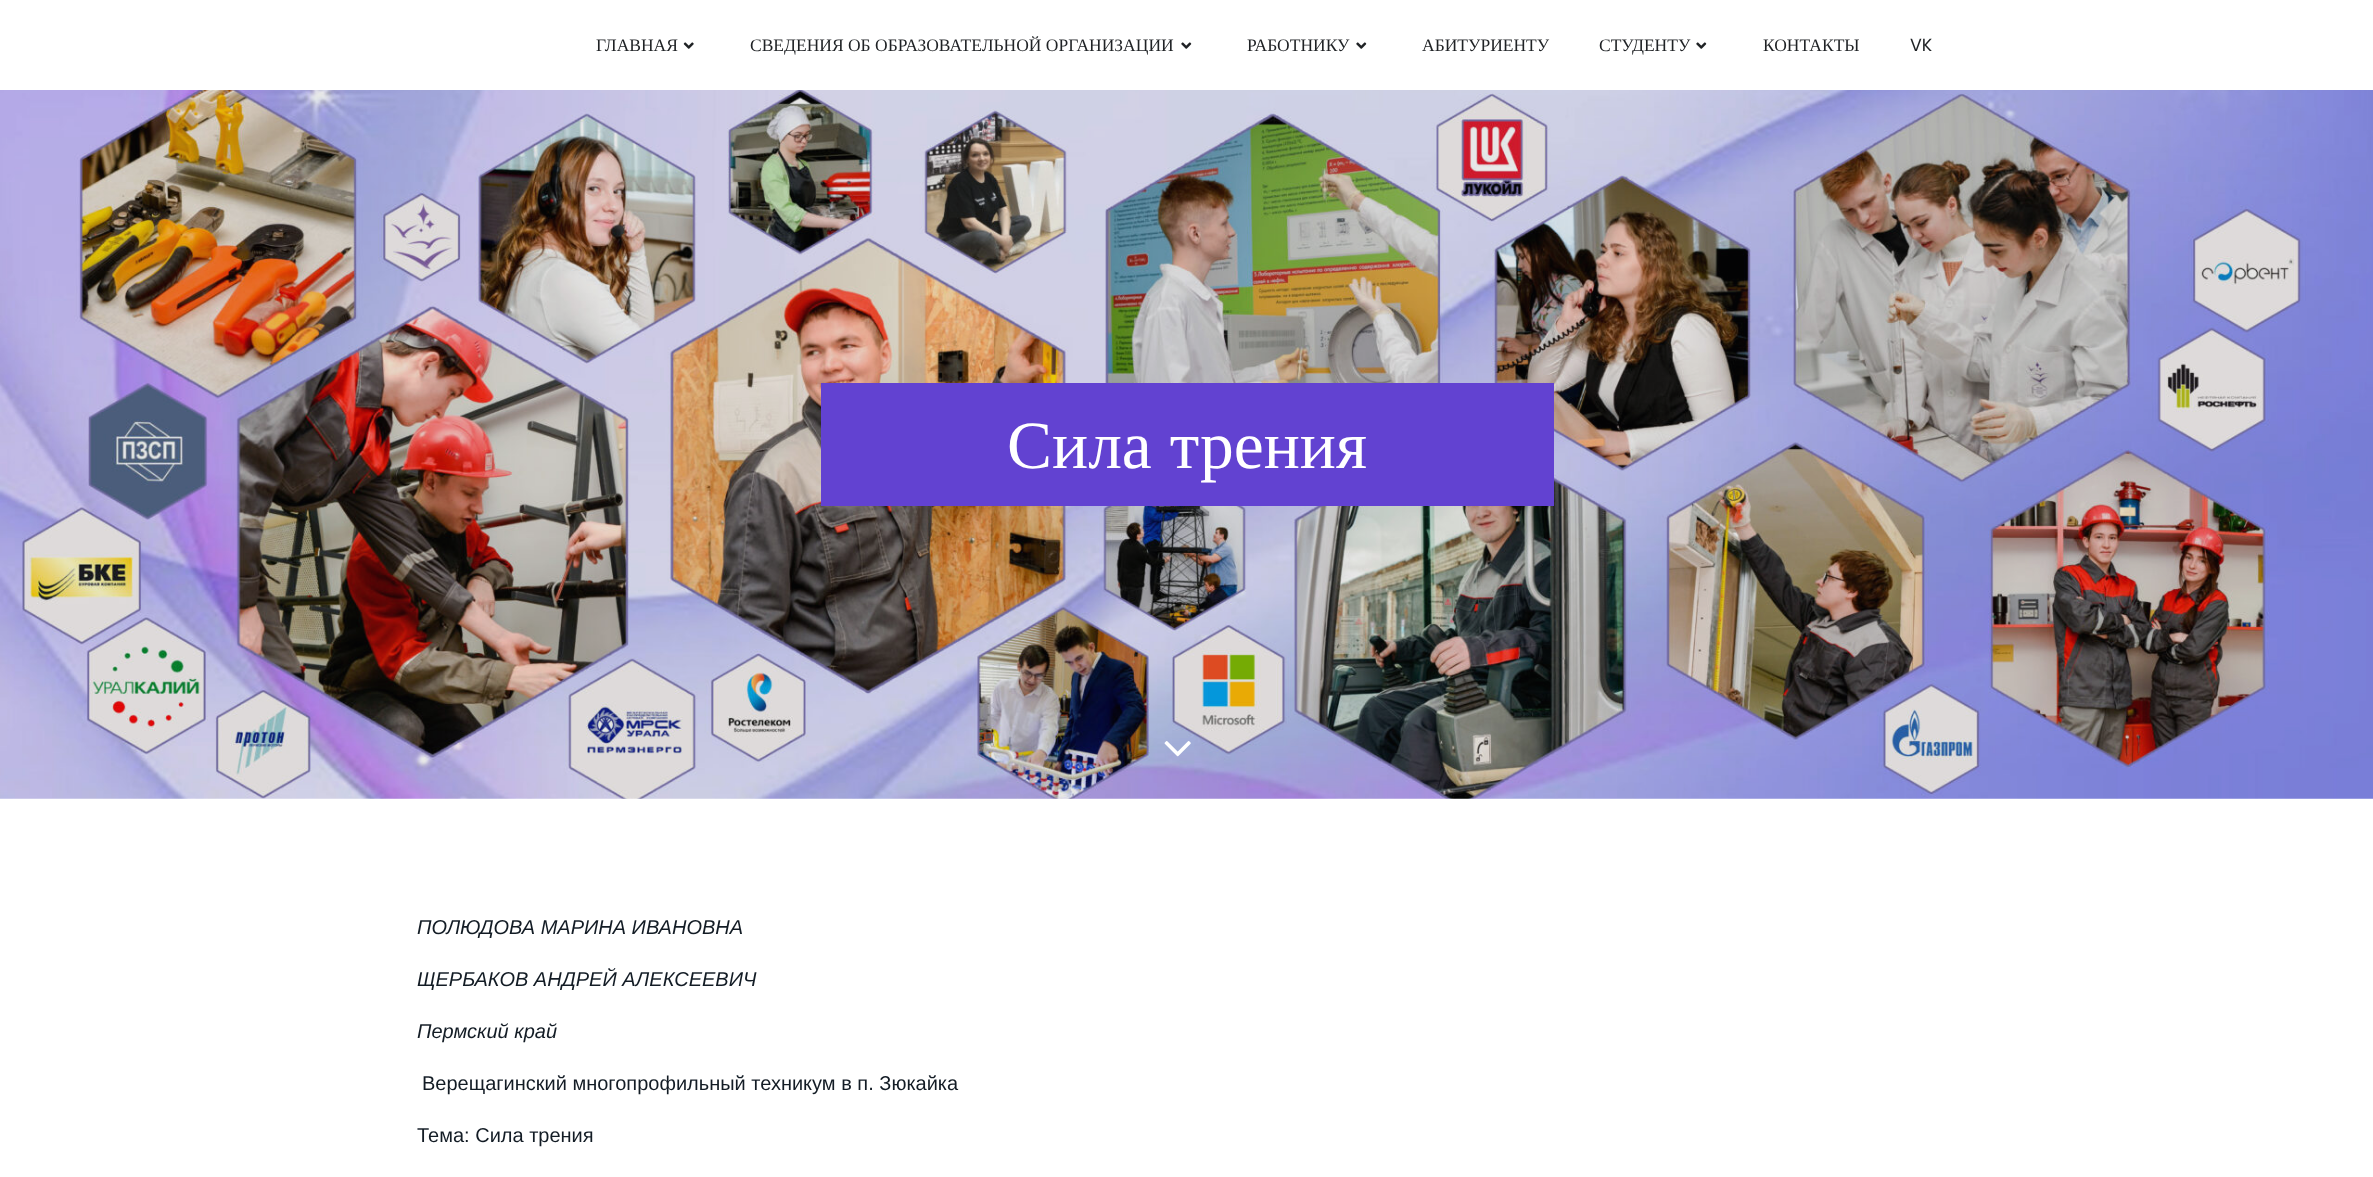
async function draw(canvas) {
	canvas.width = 2373;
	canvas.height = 1177;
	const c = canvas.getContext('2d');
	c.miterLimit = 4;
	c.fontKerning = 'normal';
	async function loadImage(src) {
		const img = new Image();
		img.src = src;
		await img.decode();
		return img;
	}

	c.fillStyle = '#fff';
	c.fillRect(0, 0, 2373, 1177);
	c.font = '17.5px Liberation Serif';
	c.fillStyle = '#1f2225';
	c.fillText('ГЛАВНАЯ', 596, 51);
	c.drawImage(await loadImage('img1.png'), 683, 42, 11, 7);
	c.fillText('СВЕДЕНИЯ ОБ ОБРАЗОВАТЕЛЬНОЙ ОРГАНИЗАЦИИ', 750, 51);
	c.drawImage(await loadImage('img2.png'), 1181, 42, 11, 7);
	c.fillText('РАБОТНИКУ', 1247, 51);
	c.drawImage(await loadImage('img2.png'), 1356, 42, 11, 7);
	c.fillText('АБИТУРИЕНТУ', 1422, 51);
	c.fillText('СТУДЕНТУ', 1599, 51);
	c.drawImage(await loadImage('img2.png'), 1696, 42, 11, 7);
	c.fillText('КОНТАКТЫ', 1763, 51);
	c.font = '17.5px Poppins';
	c.fillText('VK', 1910, 51);
	c.drawImage(await loadImage('img3.png'), 0, 90, 2373, 709);
	c.fillStyle = '#6242d1';
	c.fillRect(821, 383, 733, 123);
	c.wordSpacing = '1px';
	c.font = '67.5px Liberation Serif';
	c.fillStyle = '#fff';
	c.fillText('Сила трения', 1007, 468);
	c.drawImage(await loadImage('img4.png'), 1164, 741, 27, 16);
	c.wordSpacing = '0px';
	c.font = 'italic 20px Liberation Sans';
	c.fillStyle = '#131c25';
	for (const [text, x, y] of [
		['ПОЛЮДОВА МАРИНА ИВАНОВНА', 417, 934],
		['ЩЕРБАКОВ АНДРЕЙ АЛЕКСЕЕВИЧ', 417, 986],
		['Пермский край', 417, 1038],
	]) {
		c.fillText(text, x, y);
	}
	c.font = '20px Liberation Sans';
	c.fillText('Верещагинский многопрофильный техникум в п. Зюкайка', 422, 1090);
	c.fillText('Тема: Сила трения', 417, 1142);
}

draw(document.querySelector('canvas'));
